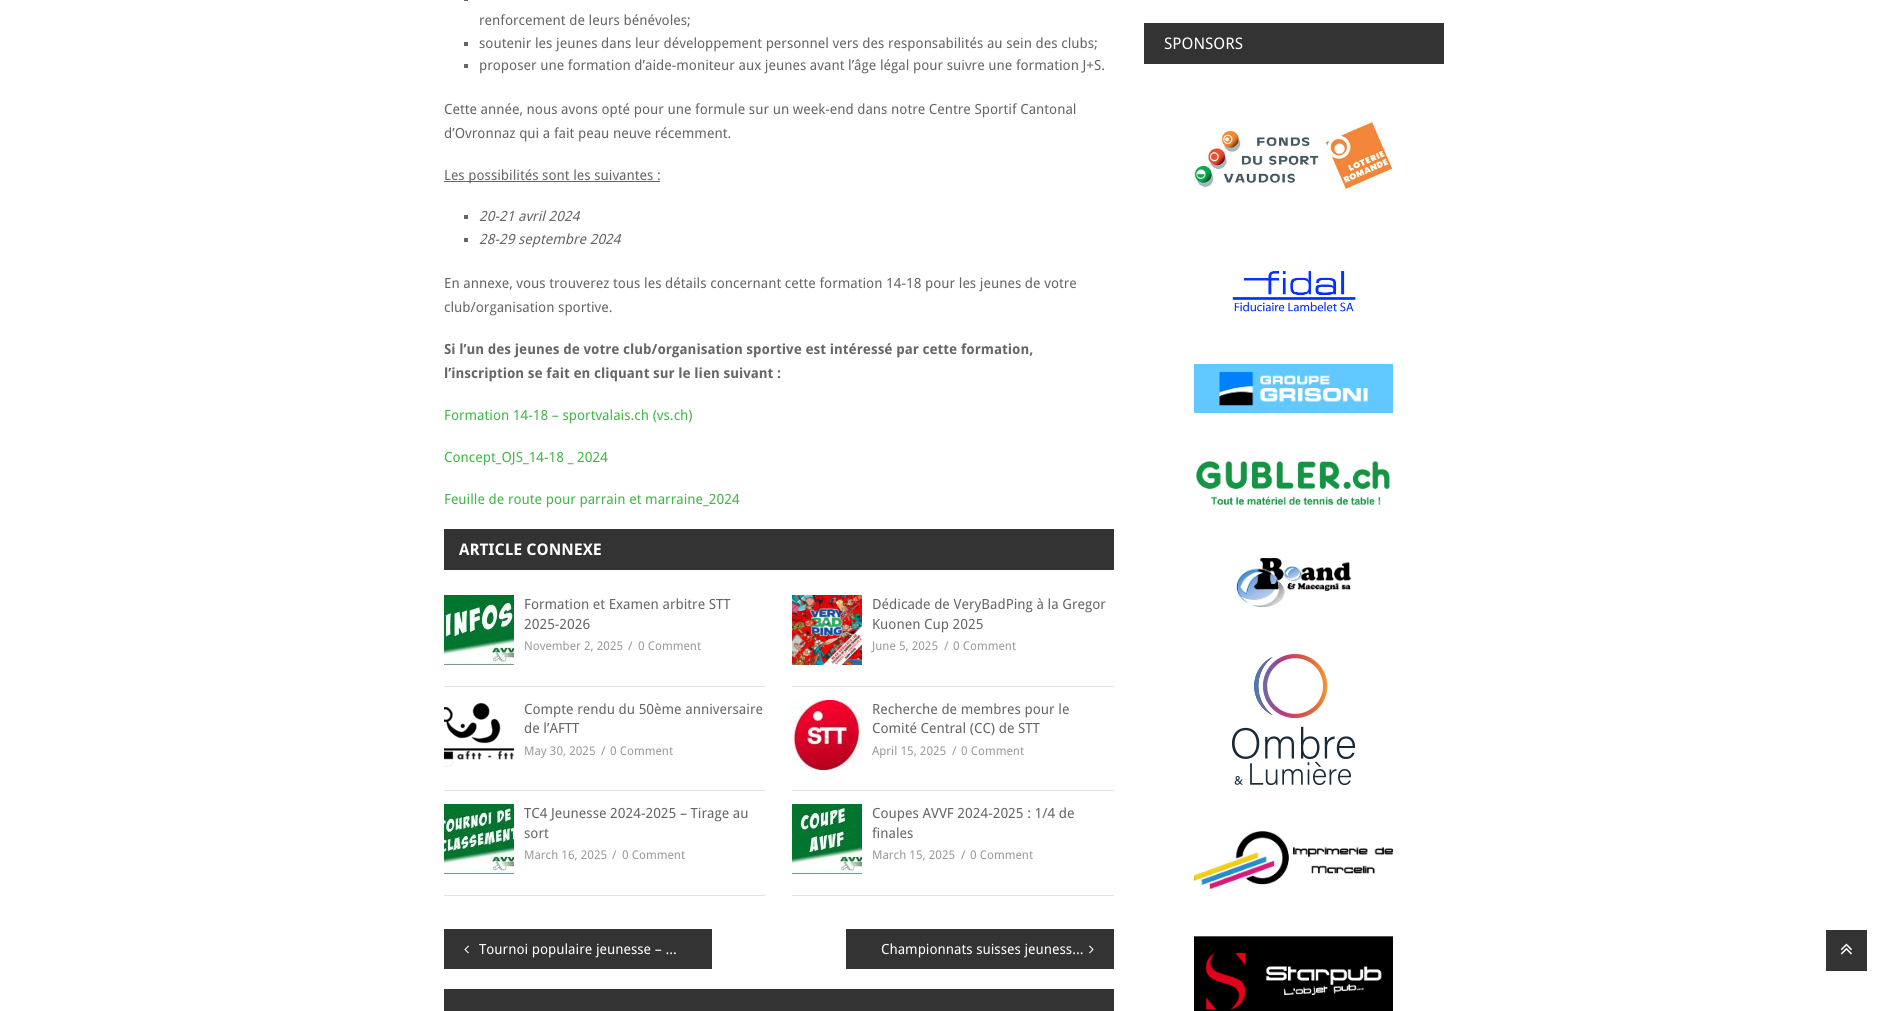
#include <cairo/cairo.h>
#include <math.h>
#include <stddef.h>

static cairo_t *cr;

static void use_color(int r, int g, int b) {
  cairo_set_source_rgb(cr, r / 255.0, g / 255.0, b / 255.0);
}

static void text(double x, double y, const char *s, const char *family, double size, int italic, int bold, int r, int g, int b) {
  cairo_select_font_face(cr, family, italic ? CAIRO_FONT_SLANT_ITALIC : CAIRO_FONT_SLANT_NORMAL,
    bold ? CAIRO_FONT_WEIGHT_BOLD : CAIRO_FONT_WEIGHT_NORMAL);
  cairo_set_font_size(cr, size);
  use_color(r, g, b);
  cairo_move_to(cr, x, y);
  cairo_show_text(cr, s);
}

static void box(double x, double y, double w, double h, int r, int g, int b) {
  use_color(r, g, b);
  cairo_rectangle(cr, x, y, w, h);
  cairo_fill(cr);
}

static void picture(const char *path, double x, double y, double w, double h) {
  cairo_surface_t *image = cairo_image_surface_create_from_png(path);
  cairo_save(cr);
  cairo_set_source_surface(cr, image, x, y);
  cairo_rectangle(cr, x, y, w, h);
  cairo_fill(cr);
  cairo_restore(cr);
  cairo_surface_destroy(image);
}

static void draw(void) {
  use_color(255, 255, 255);
  cairo_paint(cr);
  box(464, 0, 4, 1, 102, 102, 102);
  box(464, 42, 4, 4, 102, 102, 102);
  box(464, 64, 4, 4, 102, 102, 102);
  box(444, 181, 216, 1, 102, 102, 102);
  box(464, 215, 4, 4, 102, 102, 102);
  box(464, 238, 4, 4, 102, 102, 102);
  box(444, 529, 670, 41, 51, 51, 51);
  box(444, 686, 321, 1, 226, 226, 226);
  picture("img_01.png", 444, 595, 70, 70);
  box(792, 686, 322, 1, 226, 226, 226);
  picture("img_02.png", 792, 595, 70, 70);
  box(444, 790, 321, 1, 226, 226, 226);
  picture("img_03.png", 444, 702, 70, 66);
  box(792, 790, 322, 1, 226, 226, 226);
  picture("img_04.png", 792, 700, 70, 70);
  box(444, 895, 321, 1, 226, 226, 226);
  picture("img_05.png", 444, 804, 70, 70);
  box(792, 895, 322, 1, 226, 226, 226);
  picture("img_06.png", 792, 804, 70, 70);
  box(444, 929, 268, 40, 51, 51, 51);
  picture("img_07.png", 464, 945, 5, 9);
  box(846, 929, 268, 40, 51, 51, 51);
  picture("img_08.png", 1089, 945, 5, 9);
  box(444, 989, 670, 22, 51, 51, 51);
  box(1144, 23, 300, 41, 51, 51, 51);
  picture("img_09.png", 1194, 121, 199, 69);
  picture("img_10.png", 1232, 271, 124, 41);
  picture("img_11.png", 1194, 364, 199, 49);
  picture("img_12.png", 1196, 461, 194, 44);
  picture("img_13.png", 1236, 558, 115, 49);
  picture("img_14.png", 1232, 654, 123, 131);
  picture("img_15.png", 1194, 831, 199, 58);
  picture("img_16.png", 1194, 936, 199, 75);
  box(1826, 930, 41, 41, 51, 51, 51);
  picture("img_17.png", 1840, 943, 12, 12);
  text(479, 25, "renforcement de leurs bénévoles;", "Droid Sans", 14, 0, 0, 102, 102, 102);
  text(479, 48, "soutenir les jeunes dans leur développement personnel vers des responsabilités au sein des clubs;", "Droid Sans", 14, 0, 0, 102, 102, 102);
  text(479, 70, "proposer une formation d’aide-moniteur aux jeunes avant l’âge légal pour suivre une formation J+S.", "Droid Sans", 14, 0, 0, 102, 102, 102);
  text(444, 114, "Cette année, nous avons opté pour une formule sur un week-end dans notre Centre Sportif Cantonal", "Droid Sans", 14, 0, 0, 102, 102, 102);
  text(444, 138, "d’Ovronnaz qui a fait peau neuve récemment.", "Droid Sans", 14, 0, 0, 102, 102, 102);
  text(444, 180, "Les possibilités sont les suivantes :", "Droid Sans", 14, 0, 0, 102, 102, 102);
  text(479, 221, "20-21 avril 2024", "Droid Sans", 14, 1, 0, 102, 102, 102);
  text(479, 244, "28-29 septembre 2024", "Droid Sans", 14, 1, 0, 102, 102, 102);
  text(444, 288, "En annexe, vous trouverez tous les détails concernant cette formation 14-18 pour les jeunes de votre", "Droid Sans", 14, 0, 0, 102, 102, 102);
  text(444, 312, "club/organisation sportive.", "Droid Sans", 14, 0, 0, 102, 102, 102);
  text(444, 354, "Si l’un des jeunes de votre club/organisation sportive est intéressé par cette formation,", "Droid Sans", 14, 0, 1, 102, 102, 102);
  text(444, 378, "l’inscription se fait en cliquant sur le lien suivant :", "Droid Sans", 14, 0, 1, 102, 102, 102);
  text(444, 420, "Formation 14-18 – sportvalais.ch (vs.ch)", "Droid Sans", 14, 0, 0, 66, 182, 73);
  text(444, 462, "Concept_OJS_14-18 _ 2024", "Droid Sans", 14, 0, 0, 66, 182, 73);
  text(444, 504, "Feuille de route pour parrain et marraine_2024", "Droid Sans", 14, 0, 0, 66, 182, 73);
  text(459, 555, "ARTICLE CONNEXE", "Droid Sans", 16, 0, 1, 255, 255, 255);
  text(524, 609, "Formation et Examen arbitre STT", "Droid Sans", 14, 0, 0, 102, 102, 102);
  text(524, 629, "2025-2026", "Droid Sans", 14, 0, 0, 102, 102, 102);
  text(524, 650, "November 2, 2025", "Droid Sans", 12, 0, 0, 153, 153, 153);
  text(628, 650, "/", "Droid Sans", 12, 0, 0, 153, 153, 153);
  text(638, 650, "0 Comment", "Droid Sans", 12, 0, 0, 153, 153, 153);
  text(872, 609, "Dédicade de VeryBadPing à la Gregor", "Droid Sans", 14, 0, 0, 102, 102, 102);
  text(872, 629, "Kuonen Cup 2025", "Droid Sans", 14, 0, 0, 102, 102, 102);
  text(872, 650, "June 5, 2025", "Droid Sans", 12, 0, 0, 153, 153, 153);
  text(944, 650, "/", "Droid Sans", 12, 0, 0, 153, 153, 153);
  text(953, 650, "0 Comment", "Droid Sans", 12, 0, 0, 153, 153, 153);
  text(524, 714, "Compte rendu du 50ème anniversaire", "Droid Sans", 14, 0, 0, 102, 102, 102);
  text(524, 733, "de l’AFTT", "Droid Sans", 14, 0, 0, 102, 102, 102);
  text(524, 755, "May 30, 2025", "Droid Sans", 12, 0, 0, 153, 153, 153);
  text(601, 755, "/", "Droid Sans", 12, 0, 0, 153, 153, 153);
  text(610, 755, "0 Comment", "Droid Sans", 12, 0, 0, 153, 153, 153);
  text(872, 714, "Recherche de membres pour le", "Droid Sans", 14, 0, 0, 102, 102, 102);
  text(872, 733, "Comité Central (CC) de STT", "Droid Sans", 14, 0, 0, 102, 102, 102);
  text(872, 755, "April 15, 2025", "Droid Sans", 12, 0, 0, 153, 153, 153);
  text(952, 755, "/", "Droid Sans", 12, 0, 0, 153, 153, 153);
  text(961, 755, "0 Comment", "Droid Sans", 12, 0, 0, 153, 153, 153);
  text(524, 818, "TC4 Jeunesse 2024-2025 – Tirage au", "Droid Sans", 14, 0, 0, 102, 102, 102);
  text(524, 838, "sort", "Droid Sans", 14, 0, 0, 102, 102, 102);
  text(524, 859, "March 16, 2025", "Droid Sans", 12, 0, 0, 153, 153, 153);
  text(612, 859, "/", "Droid Sans", 12, 0, 0, 153, 153, 153);
  text(622, 859, "0 Comment", "Droid Sans", 12, 0, 0, 153, 153, 153);
  text(872, 818, "Coupes AVVF 2024-2025 : 1/4 de", "Droid Sans", 14, 0, 0, 102, 102, 102);
  text(872, 838, "finales", "Droid Sans", 14, 0, 0, 102, 102, 102);
  text(872, 859, "March 15, 2025", "Droid Sans", 12, 0, 0, 153, 153, 153);
  text(961, 859, "/", "Droid Sans", 12, 0, 0, 153, 153, 153);
  text(970, 859, "0 Comment", "Droid Sans", 12, 0, 0, 153, 153, 153);
  text(479, 954, "Tournoi populaire jeunesse – ...", "Droid Sans", 14, 0, 0, 255, 255, 255);
  text(881, 954, "Championnats suisses jeuness...", "Droid Sans", 14, 0, 0, 255, 255, 255);
  text(1164, 49, "SPONSORS", "Droid Sans", 16, 0, 0, 255, 255, 255);
}

int main(void) {
  cairo_surface_t *surface = cairo_image_surface_create(CAIRO_FORMAT_RGB24, 1887, 1011);
  cr = cairo_create(surface);
  cairo_font_options_t *options = cairo_font_options_create();
  cairo_font_options_set_hint_metrics(options, CAIRO_HINT_METRICS_OFF);
  cairo_font_options_set_hint_style(options, CAIRO_HINT_STYLE_NONE);
  cairo_set_font_options(cr, options);
  cairo_set_miter_limit(cr, 4);
  draw();
  cairo_surface_write_to_png(surface, "out.png");
  cairo_font_options_destroy(options);
  cairo_destroy(cr);
  cairo_surface_destroy(surface);
  return 0;
}
